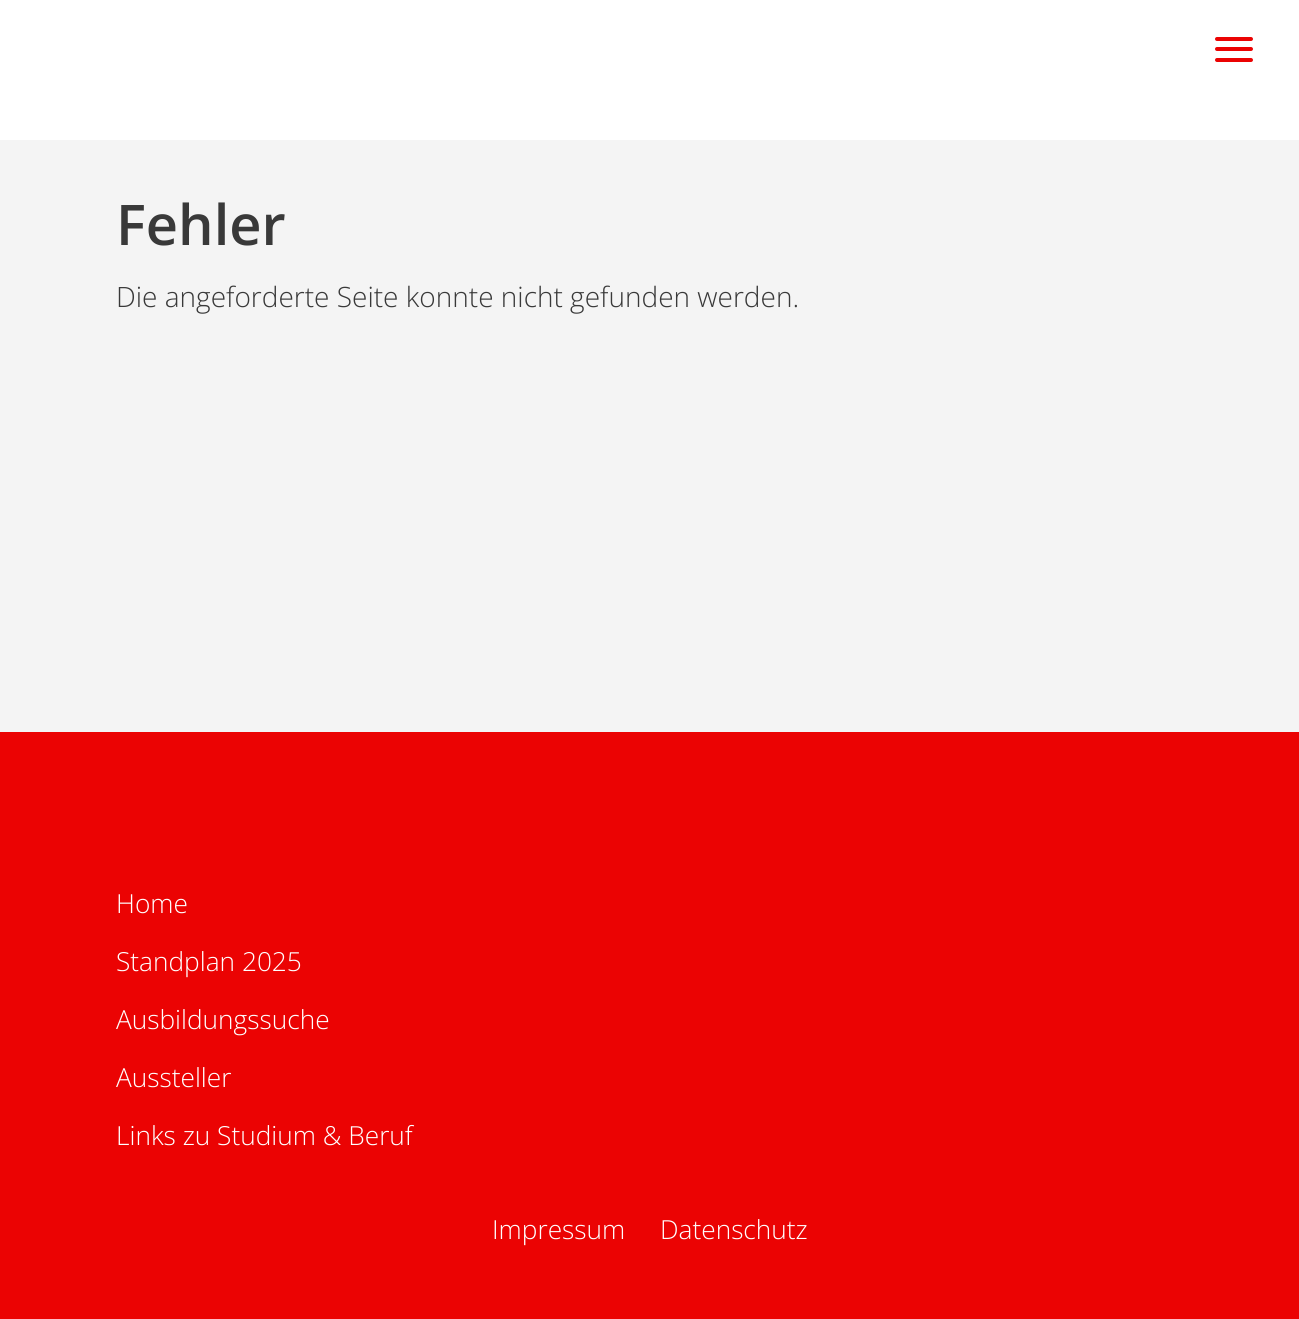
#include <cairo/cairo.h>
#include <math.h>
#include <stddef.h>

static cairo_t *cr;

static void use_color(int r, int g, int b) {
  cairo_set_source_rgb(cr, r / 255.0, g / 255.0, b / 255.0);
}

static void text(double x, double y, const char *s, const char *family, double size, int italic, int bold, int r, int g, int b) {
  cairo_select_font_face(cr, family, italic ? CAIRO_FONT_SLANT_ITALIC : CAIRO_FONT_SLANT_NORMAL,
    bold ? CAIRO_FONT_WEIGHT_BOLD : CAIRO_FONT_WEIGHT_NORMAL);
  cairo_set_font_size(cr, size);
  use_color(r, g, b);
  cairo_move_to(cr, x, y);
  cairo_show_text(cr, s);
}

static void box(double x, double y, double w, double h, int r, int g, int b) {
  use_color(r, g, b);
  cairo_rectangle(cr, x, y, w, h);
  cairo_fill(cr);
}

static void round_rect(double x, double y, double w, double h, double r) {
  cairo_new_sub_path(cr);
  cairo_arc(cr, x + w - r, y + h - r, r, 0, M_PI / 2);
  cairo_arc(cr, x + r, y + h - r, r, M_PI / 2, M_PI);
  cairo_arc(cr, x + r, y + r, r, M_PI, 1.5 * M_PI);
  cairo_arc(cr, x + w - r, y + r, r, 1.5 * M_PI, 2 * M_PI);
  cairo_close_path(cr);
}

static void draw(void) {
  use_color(244, 244, 244);
  cairo_paint(cr);
  box(0, 0, 1299, 140, 255, 255, 255);
  use_color(235, 3, 3);
  round_rect(1215, 37, 38, 4, 2);
  cairo_fill(cr);
  round_rect(1215, 47, 38, 4, 2);
  cairo_fill(cr);
  round_rect(1215, 58, 38, 4, 2);
  cairo_fill(cr);
  box(0, 732, 1299, 587, 235, 3, 3);
  text(116, 245, "Fehler", "Open Sans SemiBold", 56, 0, 0, 57, 57, 57);
  text(116, 307, "Die angeforderte Seite konnte nicht gefunden werden.", "Open Sans Light", 28, 0, 0, 57, 57, 57);
  text(116, 913, "Home", "Open Sans Light", 26.25, 0, 0, 255, 255, 255);
  text(116, 971, "Standplan 2025", "Open Sans Light", 26.25, 0, 0, 255, 255, 255);
  text(116, 1029, "Ausbildungssuche", "Open Sans Light", 26.25, 0, 0, 255, 255, 255);
  text(116, 1087, "Aussteller", "Open Sans Light", 26.25, 0, 0, 255, 255, 255);
  text(116, 1145, "Links zu Studium & Beruf", "Open Sans Light", 26.25, 0, 0, 255, 255, 255);
  text(492, 1239, "Impressum", "Open Sans Light", 26.25, 0, 0, 255, 255, 255);
  text(660, 1239, "Datenschutz", "Open Sans Light", 26.25, 0, 0, 255, 255, 255);
}

int main(void) {
  cairo_surface_t *surface = cairo_image_surface_create(CAIRO_FORMAT_RGB24, 1299, 1319);
  cr = cairo_create(surface);
  cairo_font_options_t *options = cairo_font_options_create();
  cairo_font_options_set_hint_metrics(options, CAIRO_HINT_METRICS_OFF);
  cairo_font_options_set_hint_style(options, CAIRO_HINT_STYLE_NONE);
  cairo_set_font_options(cr, options);
  cairo_set_miter_limit(cr, 4);
  draw();
  cairo_surface_write_to_png(surface, "out.png");
  cairo_font_options_destroy(options);
  cairo_destroy(cr);
  cairo_surface_destroy(surface);
  return 0;
}
